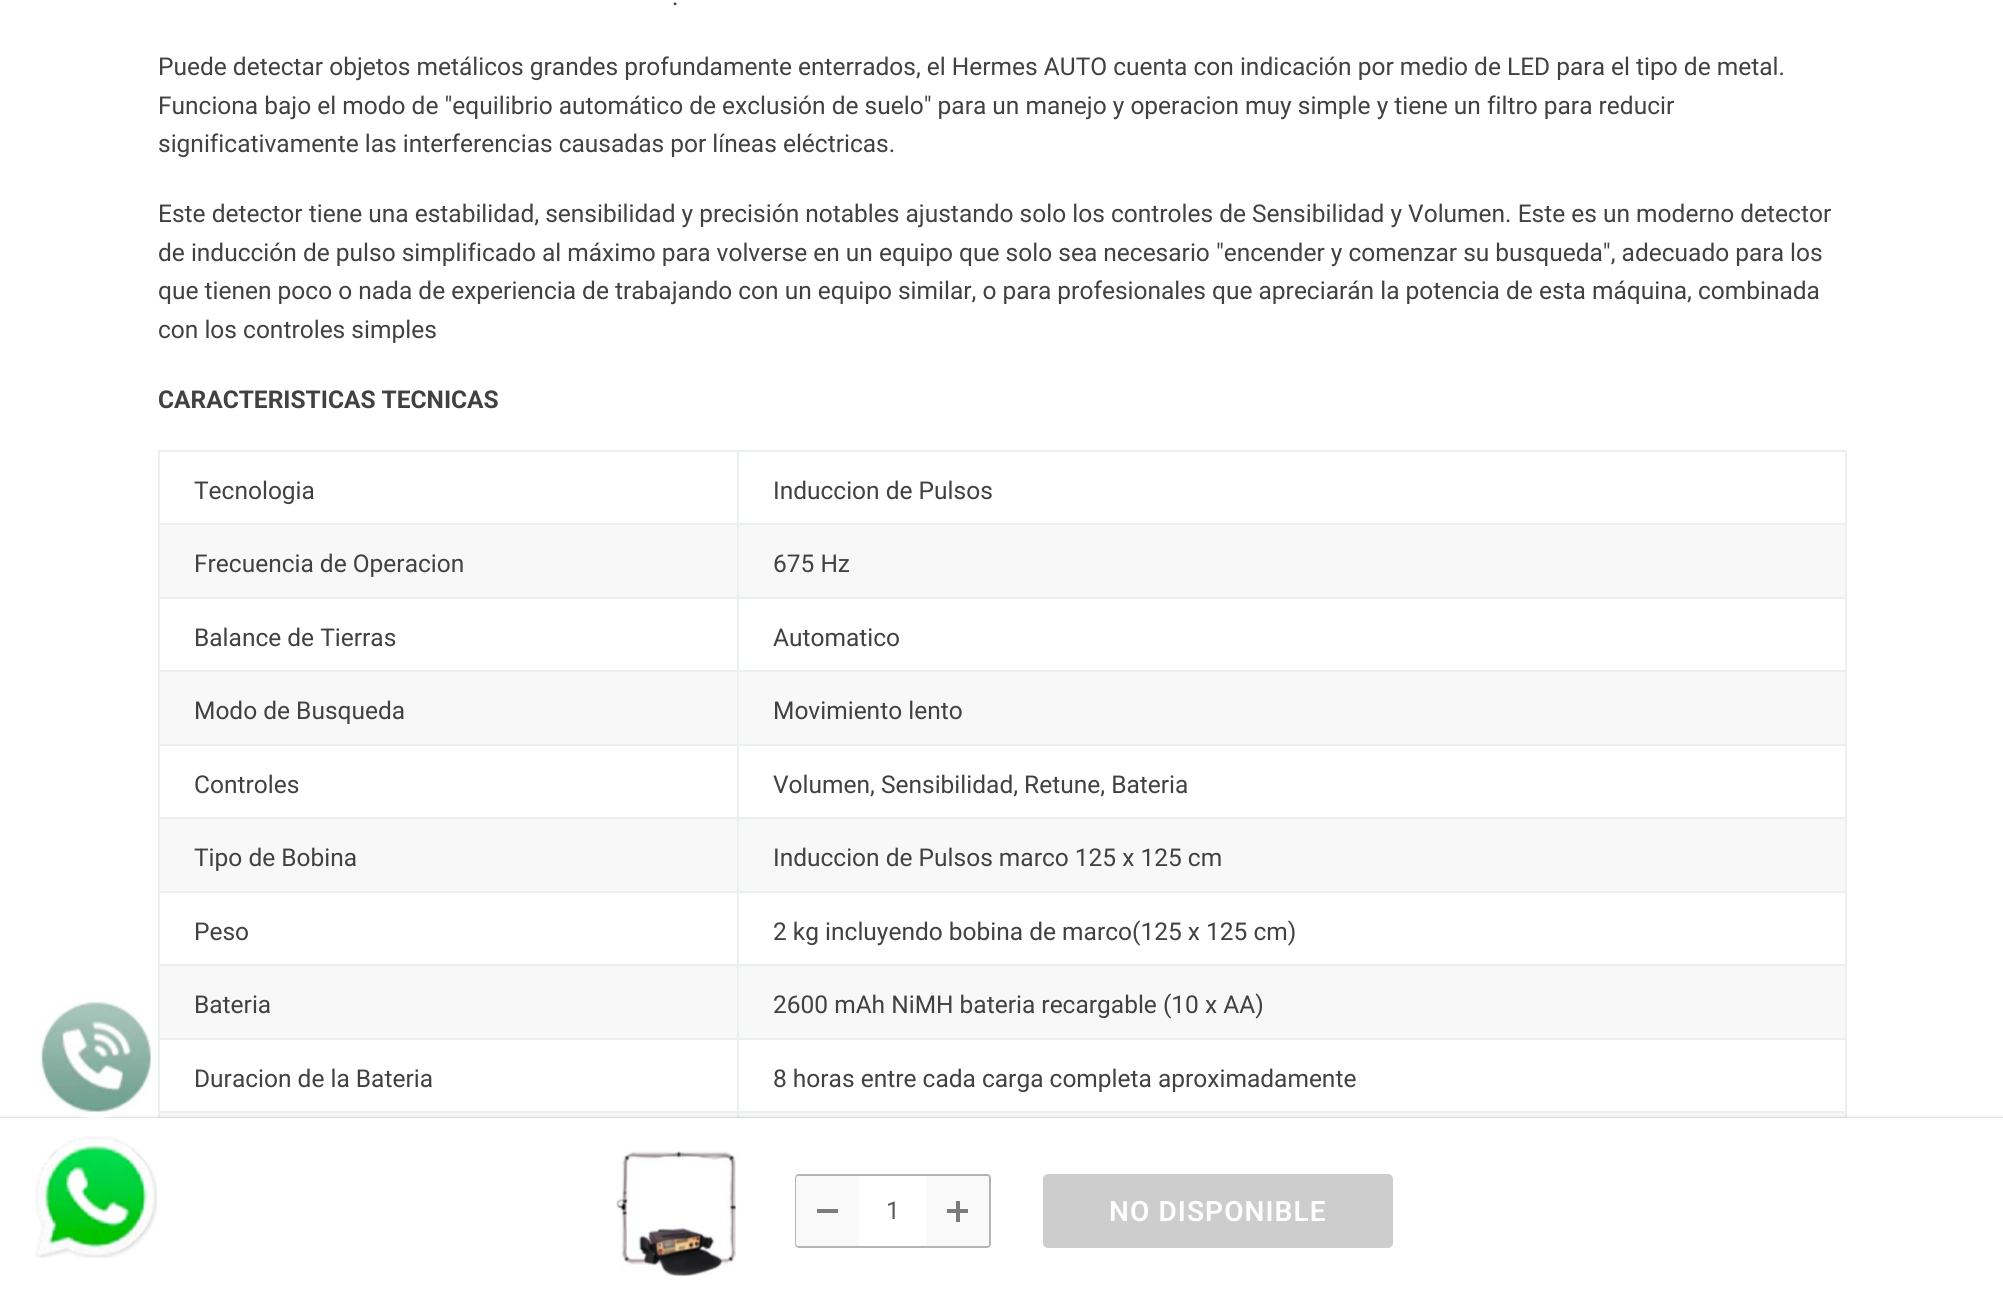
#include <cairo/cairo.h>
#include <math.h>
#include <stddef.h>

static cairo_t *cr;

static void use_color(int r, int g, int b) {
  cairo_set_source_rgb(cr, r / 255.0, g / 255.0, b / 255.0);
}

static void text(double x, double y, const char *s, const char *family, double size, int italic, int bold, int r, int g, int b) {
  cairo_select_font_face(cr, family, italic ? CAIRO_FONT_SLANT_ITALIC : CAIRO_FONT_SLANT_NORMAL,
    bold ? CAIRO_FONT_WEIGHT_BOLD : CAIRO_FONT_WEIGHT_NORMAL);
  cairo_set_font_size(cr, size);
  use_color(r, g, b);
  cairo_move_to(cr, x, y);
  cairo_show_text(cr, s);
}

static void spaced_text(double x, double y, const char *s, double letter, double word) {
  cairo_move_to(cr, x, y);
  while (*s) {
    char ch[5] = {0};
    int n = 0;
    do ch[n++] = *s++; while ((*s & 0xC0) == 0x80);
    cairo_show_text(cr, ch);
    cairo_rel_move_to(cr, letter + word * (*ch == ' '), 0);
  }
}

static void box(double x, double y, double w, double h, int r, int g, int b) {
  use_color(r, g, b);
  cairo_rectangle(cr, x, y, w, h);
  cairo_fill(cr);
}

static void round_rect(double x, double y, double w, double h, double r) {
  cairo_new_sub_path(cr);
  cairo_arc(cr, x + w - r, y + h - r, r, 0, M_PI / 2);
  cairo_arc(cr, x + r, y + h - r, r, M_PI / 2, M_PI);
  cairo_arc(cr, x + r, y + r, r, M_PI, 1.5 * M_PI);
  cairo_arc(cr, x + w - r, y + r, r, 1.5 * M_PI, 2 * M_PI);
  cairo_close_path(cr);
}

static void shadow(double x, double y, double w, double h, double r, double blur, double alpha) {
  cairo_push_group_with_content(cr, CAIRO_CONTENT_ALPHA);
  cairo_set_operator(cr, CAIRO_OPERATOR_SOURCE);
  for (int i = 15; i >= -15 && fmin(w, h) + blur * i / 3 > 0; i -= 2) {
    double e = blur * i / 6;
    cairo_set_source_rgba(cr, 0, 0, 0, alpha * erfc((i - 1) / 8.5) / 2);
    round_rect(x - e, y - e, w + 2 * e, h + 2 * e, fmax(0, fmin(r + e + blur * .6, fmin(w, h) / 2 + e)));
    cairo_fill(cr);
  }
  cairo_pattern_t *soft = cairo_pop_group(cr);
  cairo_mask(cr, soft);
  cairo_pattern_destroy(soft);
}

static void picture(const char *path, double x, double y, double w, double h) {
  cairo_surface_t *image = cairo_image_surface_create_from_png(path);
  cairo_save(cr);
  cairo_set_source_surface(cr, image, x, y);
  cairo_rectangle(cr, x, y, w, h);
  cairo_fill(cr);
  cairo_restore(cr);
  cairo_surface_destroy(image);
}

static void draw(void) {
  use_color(255, 255, 255);
  cairo_paint(cr);
  box(737, 1038, 1109, 2, 234, 239, 239);
  box(737, 1111, 1109, 2, 234, 239, 239);
  box(737, 1111, 2, 7, 234, 239, 239);
  box(158, 1111, 581, 2, 234, 239, 239);
  box(737, 1038, 2, 75, 234, 239, 239);
  box(158, 1038, 581, 2, 234, 239, 239);
  box(158, 1111, 2, 7, 234, 239, 239);
  box(158, 1038, 2, 75, 234, 239, 239);
  box(1845, 1111, 2, 7, 234, 239, 239);
  box(1845, 1038, 2, 75, 234, 239, 239);
  box(160, 1113, 577, 5, 248, 248, 248);
  box(739, 1113, 1106, 5, 248, 248, 248);
  use_color(0, 0, 0);
  shadow(0, 1117, 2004, 183, 0, 2, 0.1);
  cairo_rectangle(cr, -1, 1118, 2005, 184);
  cairo_set_source_rgba(cr, 0, 0, 0, 0.06);
  cairo_stroke(cr);
  picture("img_01.png", 39, 1001, 114, 117);
  box(737, 450, 1109, 2, 234, 239, 239);
  box(737, 523, 1109, 2, 234, 239, 239);
  box(737, 597, 1109, 2, 234, 239, 239);
  box(737, 670, 1109, 2, 234, 239, 239);
  box(737, 744, 1109, 2, 234, 239, 239);
  box(737, 817, 1109, 2, 234, 239, 239);
  box(737, 891, 1109, 2, 234, 239, 239);
  box(737, 964, 1109, 2, 234, 239, 239);
  box(737, 964, 2, 76, 234, 239, 239);
  box(158, 964, 581, 2, 234, 239, 239);
  box(737, 891, 2, 75, 234, 239, 239);
  box(158, 891, 581, 2, 234, 239, 239);
  box(737, 817, 2, 76, 234, 239, 239);
  box(158, 817, 581, 2, 234, 239, 239);
  box(737, 744, 2, 75, 234, 239, 239);
  box(158, 744, 581, 2, 234, 239, 239);
  box(737, 670, 2, 76, 234, 239, 239);
  box(158, 670, 581, 2, 234, 239, 239);
  box(737, 597, 2, 75, 234, 239, 239);
  box(158, 597, 581, 2, 234, 239, 239);
  box(737, 523, 2, 76, 234, 239, 239);
  box(158, 523, 581, 2, 234, 239, 239);
  box(737, 450, 2, 75, 234, 239, 239);
  box(158, 450, 581, 2, 234, 239, 239);
  box(158, 964, 2, 76, 234, 239, 239);
  box(158, 891, 2, 75, 234, 239, 239);
  box(158, 817, 2, 76, 234, 239, 239);
  box(158, 744, 2, 75, 234, 239, 239);
  box(158, 670, 2, 76, 234, 239, 239);
  box(158, 597, 2, 75, 234, 239, 239);
  box(158, 523, 2, 76, 234, 239, 239);
  box(158, 450, 2, 75, 234, 239, 239);
  box(1845, 964, 2, 76, 234, 239, 239);
  box(1845, 891, 2, 75, 234, 239, 239);
  box(1845, 817, 2, 76, 234, 239, 239);
  box(1845, 744, 2, 75, 234, 239, 239);
  box(1845, 670, 2, 76, 234, 239, 239);
  box(1845, 597, 2, 75, 234, 239, 239);
  box(1845, 523, 2, 76, 234, 239, 239);
  box(1845, 450, 2, 75, 234, 239, 239);
  box(160, 525, 577, 72, 248, 248, 248);
  box(739, 525, 1106, 72, 248, 248, 248);
  box(160, 672, 577, 72, 248, 248, 248);
  box(739, 672, 1106, 72, 248, 248, 248);
  box(160, 819, 577, 72, 248, 248, 248);
  box(739, 819, 1106, 72, 248, 248, 248);
  box(160, 966, 577, 72, 248, 248, 248);
  box(739, 966, 1106, 72, 248, 248, 248);
  box(0, 1118, 2003, 183, 255, 255, 255);
  picture("img_02.png", 616, 1150, 121, 127);
  round_rect(796, 1175, 194, 72, 3);
  use_color(180, 180, 180);
  cairo_stroke(cr);
  use_color(249, 249, 249);
  cairo_new_path(cr);
  cairo_move_to(cr, 798, 1176);
  cairo_line_to(cr, 859, 1176);
  cairo_line_to(cr, 859, 1246);
  cairo_line_to(cr, 798, 1246);
  cairo_curve_to(cr, 797, 1246, 796, 1245, 796, 1244);
  cairo_line_to(cr, 796, 1178);
  cairo_curve_to(cr, 796, 1177, 797, 1176, 798, 1176);
  cairo_close_path(cr);
  cairo_fill(cr);
  box(817, 1209, 21, 4, 123, 123, 123);
  use_color(249, 249, 249);
  cairo_new_path(cr);
  cairo_move_to(cr, 926, 1176);
  cairo_line_to(cr, 987, 1176);
  cairo_curve_to(cr, 988, 1176, 989, 1177, 989, 1178);
  cairo_line_to(cr, 989, 1244);
  cairo_curve_to(cr, 989, 1245, 988, 1246, 987, 1246);
  cairo_line_to(cr, 926, 1246);
  cairo_close_path(cr);
  cairo_fill(cr);
  box(956, 1201, 4, 21, 123, 123, 123);
  box(947, 1209, 21, 4, 123, 123, 123);
  use_color(205, 205, 205);
  round_rect(1044, 1175, 348, 72, 4);
  cairo_fill_preserve(cr);
  cairo_stroke(cr);
  picture("img_03.png", 35, 1136, 122, 122);
  text(672, 5, ".", "Roboto", 24.5, 0, 0, 65, 65, 65);
  text(158, 75, "Puede detectar objetos metálicos grandes profundamente enterrados, el Hermes AUTO cuenta con indicación por medio de LED para el tipo de metal.", "Roboto", 24.5, 0, 0, 65, 65, 65);
  text(158, 114, "Funciona bajo el modo de \"equilibrio automático de exclusión de suelo\" para un manejo y operacion muy simple y tiene un filtro para reducir", "Roboto", 24.5, 0, 0, 65, 65, 65);
  text(158, 152, "significativamente las interferencias causadas por líneas eléctricas.", "Roboto", 24.5, 0, 0, 65, 65, 65);
  text(158, 222, "Este detector tiene una estabilidad, sensibilidad y precisión notables ajustando solo los controles de Sensibilidad y Volumen. Este es un moderno detector", "Roboto", 24.5, 0, 0, 65, 65, 65);
  text(158, 261, "de inducción de pulso simplificado al máximo para volverse en un equipo que solo sea necesario \"encender y comenzar su busqueda\", adecuado para los", "Roboto", 24.5, 0, 0, 65, 65, 65);
  text(158, 299, "que tienen poco o nada de experiencia de trabajando con un equipo similar, o para profesionales que apreciarán la potencia de esta máquina, combinada", "Roboto", 24.5, 0, 0, 65, 65, 65);
  text(158, 338, "con los controles simples", "Roboto", 24.5, 0, 0, 65, 65, 65);
  text(158, 408, "CARACTERISTICAS TECNICAS", "Roboto", 24.5, 0, 1, 65, 65, 65);
  text(194, 499, "Tecnologia", "Roboto", 24.5, 0, 0, 65, 65, 65);
  text(773, 499, "Induccion de Pulsos", "Roboto", 24.5, 0, 0, 65, 65, 65);
  text(194, 572, "Frecuencia de Operacion", "Roboto", 24.5, 0, 0, 65, 65, 65);
  text(773, 572, "675 Hz", "Roboto", 24.5, 0, 0, 65, 65, 65);
  text(194, 646, "Balance de Tierras", "Roboto", 24.5, 0, 0, 65, 65, 65);
  text(773, 646, "Automatico", "Roboto", 24.5, 0, 0, 65, 65, 65);
  text(194, 719, "Modo de Busqueda", "Roboto", 24.5, 0, 0, 65, 65, 65);
  text(773, 719, "Movimiento lento", "Roboto", 24.5, 0, 0, 65, 65, 65);
  text(194, 793, "Controles", "Roboto", 24.5, 0, 0, 65, 65, 65);
  text(773, 793, "Volumen, Sensibilidad, Retune, Bateria", "Roboto", 24.5, 0, 0, 65, 65, 65);
  text(194, 866, "Tipo de Bobina", "Roboto", 24.5, 0, 0, 65, 65, 65);
  text(773, 866, "Induccion de Pulsos marco 125 x 125 cm", "Roboto", 24.5, 0, 0, 65, 65, 65);
  text(194, 940, "Peso", "Roboto", 24.5, 0, 0, 65, 65, 65);
  text(773, 940, "2 kg incluyendo bobina de marco(125 x 125 cm)", "Roboto", 24.5, 0, 0, 65, 65, 65);
  text(194, 1013, "Bateria", "Roboto", 24.5, 0, 0, 65, 65, 65);
  text(773, 1013, "2600 mAh NiMH bateria recargable (10 x AA)", "Roboto", 24.5, 0, 0, 65, 65, 65);
  text(194, 1087, "Duracion de la Bateria", "Roboto", 24.5, 0, 0, 65, 65, 65);
  text(773, 1087, "8 horas entre cada carga completa aproximadamente", "Roboto", 24.5, 0, 0, 65, 65, 65);
  text(886, 1219, "1", "Roboto", 24.5, 0, 0, 90, 90, 90);
  cairo_select_font_face(cr, "Roboto SemiBold", CAIRO_FONT_SLANT_NORMAL, CAIRO_FONT_WEIGHT_NORMAL);
  cairo_set_font_size(cr, 28);
  use_color(255, 255, 255);
  spaced_text(1109, 1221, "NO DISPONIBLE", 1.1, 0);
}

int main(void) {
  cairo_surface_t *surface = cairo_image_surface_create(CAIRO_FORMAT_RGB24, 2003, 1301);
  cr = cairo_create(surface);
  cairo_font_options_t *options = cairo_font_options_create();
  cairo_font_options_set_hint_metrics(options, CAIRO_HINT_METRICS_OFF);
  cairo_font_options_set_hint_style(options, CAIRO_HINT_STYLE_NONE);
  cairo_set_font_options(cr, options);
  cairo_set_miter_limit(cr, 4);
  draw();
  cairo_surface_write_to_png(surface, "out.png");
  cairo_font_options_destroy(options);
  cairo_destroy(cr);
  cairo_surface_destroy(surface);
  return 0;
}
